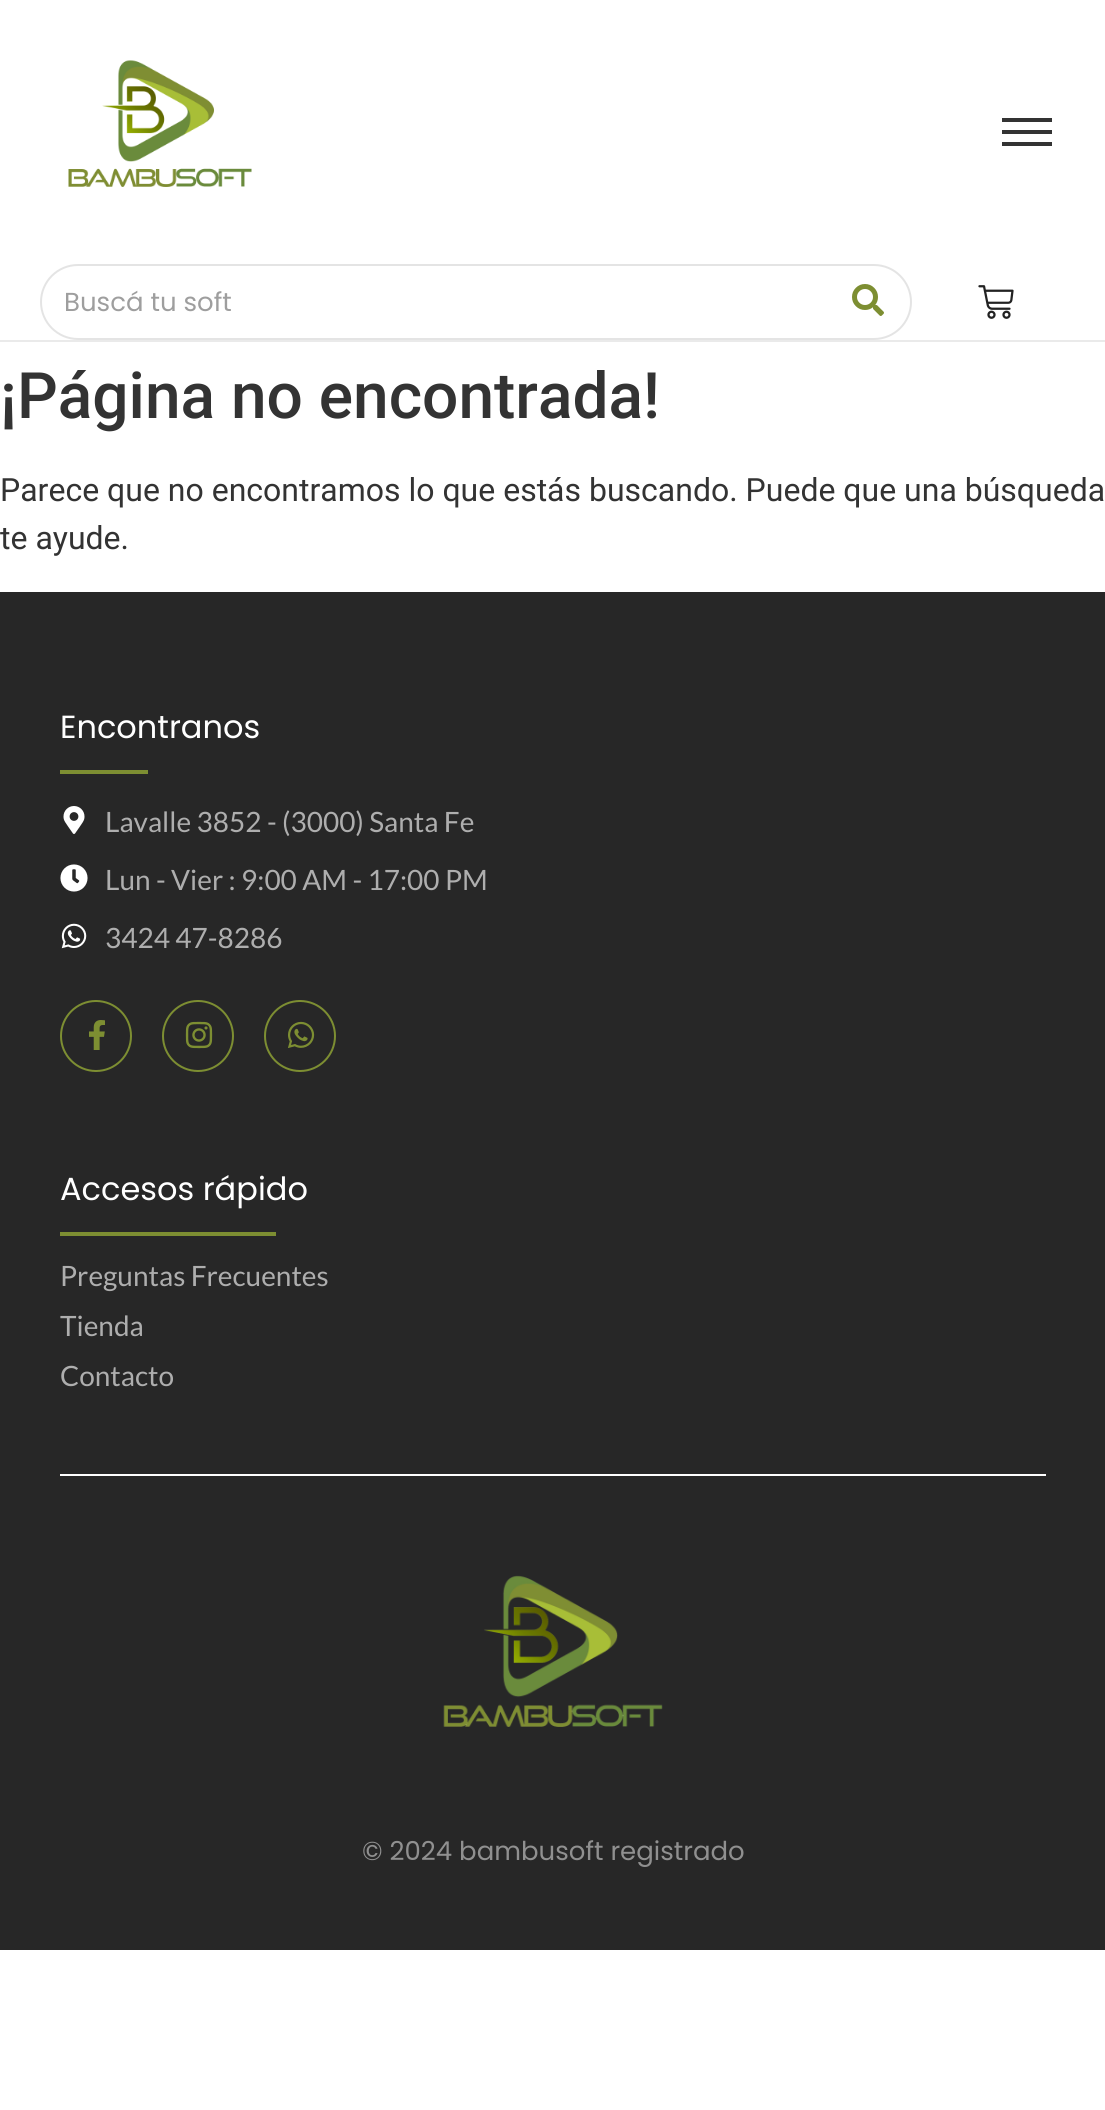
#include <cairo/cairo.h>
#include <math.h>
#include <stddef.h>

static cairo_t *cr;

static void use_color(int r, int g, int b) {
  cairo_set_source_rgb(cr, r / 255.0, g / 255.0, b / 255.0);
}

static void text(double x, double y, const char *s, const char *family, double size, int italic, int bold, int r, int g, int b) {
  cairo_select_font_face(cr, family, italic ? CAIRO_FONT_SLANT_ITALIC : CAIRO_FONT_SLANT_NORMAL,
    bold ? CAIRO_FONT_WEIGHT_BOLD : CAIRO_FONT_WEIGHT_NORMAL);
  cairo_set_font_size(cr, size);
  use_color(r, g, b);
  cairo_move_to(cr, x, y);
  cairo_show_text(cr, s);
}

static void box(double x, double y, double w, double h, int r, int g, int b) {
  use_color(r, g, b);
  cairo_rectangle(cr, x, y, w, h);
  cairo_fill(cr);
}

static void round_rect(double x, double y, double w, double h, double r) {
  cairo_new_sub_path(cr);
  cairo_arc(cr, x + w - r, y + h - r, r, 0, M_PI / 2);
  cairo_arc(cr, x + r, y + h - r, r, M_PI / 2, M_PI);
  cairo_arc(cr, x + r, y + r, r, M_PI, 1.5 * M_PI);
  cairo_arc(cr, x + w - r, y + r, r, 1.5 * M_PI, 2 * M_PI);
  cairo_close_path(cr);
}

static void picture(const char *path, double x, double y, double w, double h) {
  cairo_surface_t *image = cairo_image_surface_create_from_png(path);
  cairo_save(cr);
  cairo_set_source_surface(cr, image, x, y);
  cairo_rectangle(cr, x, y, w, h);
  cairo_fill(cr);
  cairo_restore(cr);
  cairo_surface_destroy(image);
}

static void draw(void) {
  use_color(255, 255, 255);
  cairo_paint(cr);
  box(0, 340, 1105, 2, 234, 234, 234);
  picture("img_01.png", 68, 60, 184, 127);
  box(1002, 118, 50, 4, 51, 51, 51);
  box(1002, 130, 50, 4, 51, 51, 51);
  box(1002, 142, 50, 4, 51, 51, 51);
  round_rect(41, 265, 870, 74, 37);
  use_color(228, 228, 228);
  cairo_stroke(cr);
  picture("img_02.png", 852, 284, 32, 32);
  picture("img_03.png", 978, 285, 36, 34);
  box(0, 592, 1105, 1358, 39, 39, 39);
  box(60, 770, 88, 4, 125, 142, 50);
  picture("img_04.png", 63, 806, 22, 28);
  picture("img_05.png", 60, 864, 28, 28);
  picture("img_06.png", 61, 923, 26, 26);
  cairo_arc(cr, 96, 1036, 35, 0, 2 * M_PI);
  cairo_stroke(cr);
  picture("img_07.png", 89, 1020, 16, 30);
  cairo_arc(cr, 198, 1036, 35, 0, 2 * M_PI);
  cairo_stroke(cr);
  picture("img_08.png", 185, 1021, 28, 28);
  cairo_arc(cr, 300, 1036, 35, 0, 2 * M_PI);
  cairo_stroke(cr);
  picture("img_09.png", 288, 1021, 27, 27);
  box(60, 1232, 216, 4, 125, 142, 50);
  box(60, 1474, 986, 2, 255, 255, 255);
  picture("img_10.png", 443, 1575, 220, 152);
  text(64, 311, "Buscá tu soft", "Poppins", 26, 0, 0, 158, 158, 158);
  text(0, 418, "¡Página no encontrada!", "Roboto Medium", 64, 0, 0, 51, 51, 51);
  text(0, 501, "Parece que no encontramos lo que estás buscando. Puede que una búsqueda", "Roboto", 32, 0, 0, 51, 51, 51);
  text(0, 549, "te ayude.", "Roboto", 32, 0, 0, 51, 51, 51);
  text(60, 738, "Encontranos", "Poppins", 32, 0, 0, 255, 255, 255);
  text(105, 832, "Lavalle 3852 - (3000) Santa Fe", "Lato", 28, 0, 0, 174, 174, 174);
  text(105, 890, "Lun - Vier : 9:00 AM - 17:00 PM", "Lato", 28, 0, 0, 174, 174, 174);
  text(105, 948, "3424 47-8286", "Lato", 28, 0, 0, 174, 174, 174);
  text(60, 1200, "Accesos rápido", "Poppins", 32, 0, 0, 255, 255, 255);
  text(60, 1286, "Preguntas Frecuentes", "Lato", 28, 0, 0, 174, 174, 174);
  text(60, 1336, "Tienda", "Lato", 28, 0, 0, 174, 174, 174);
  text(60, 1386, "Contacto", "Lato", 28, 0, 0, 174, 174, 174);
  text(362, 1860, "© 2024 bambusoft registrado", "Poppins", 26, 0, 0, 144, 144, 144);
}

int main(void) {
  cairo_surface_t *surface = cairo_image_surface_create(CAIRO_FORMAT_RGB24, 1105, 2110);
  cr = cairo_create(surface);
  cairo_font_options_t *options = cairo_font_options_create();
  cairo_font_options_set_hint_metrics(options, CAIRO_HINT_METRICS_OFF);
  cairo_font_options_set_hint_style(options, CAIRO_HINT_STYLE_NONE);
  cairo_set_font_options(cr, options);
  cairo_set_miter_limit(cr, 4);
  draw();
  cairo_surface_write_to_png(surface, "out.png");
  cairo_font_options_destroy(options);
  cairo_destroy(cr);
  cairo_surface_destroy(surface);
  return 0;
}
